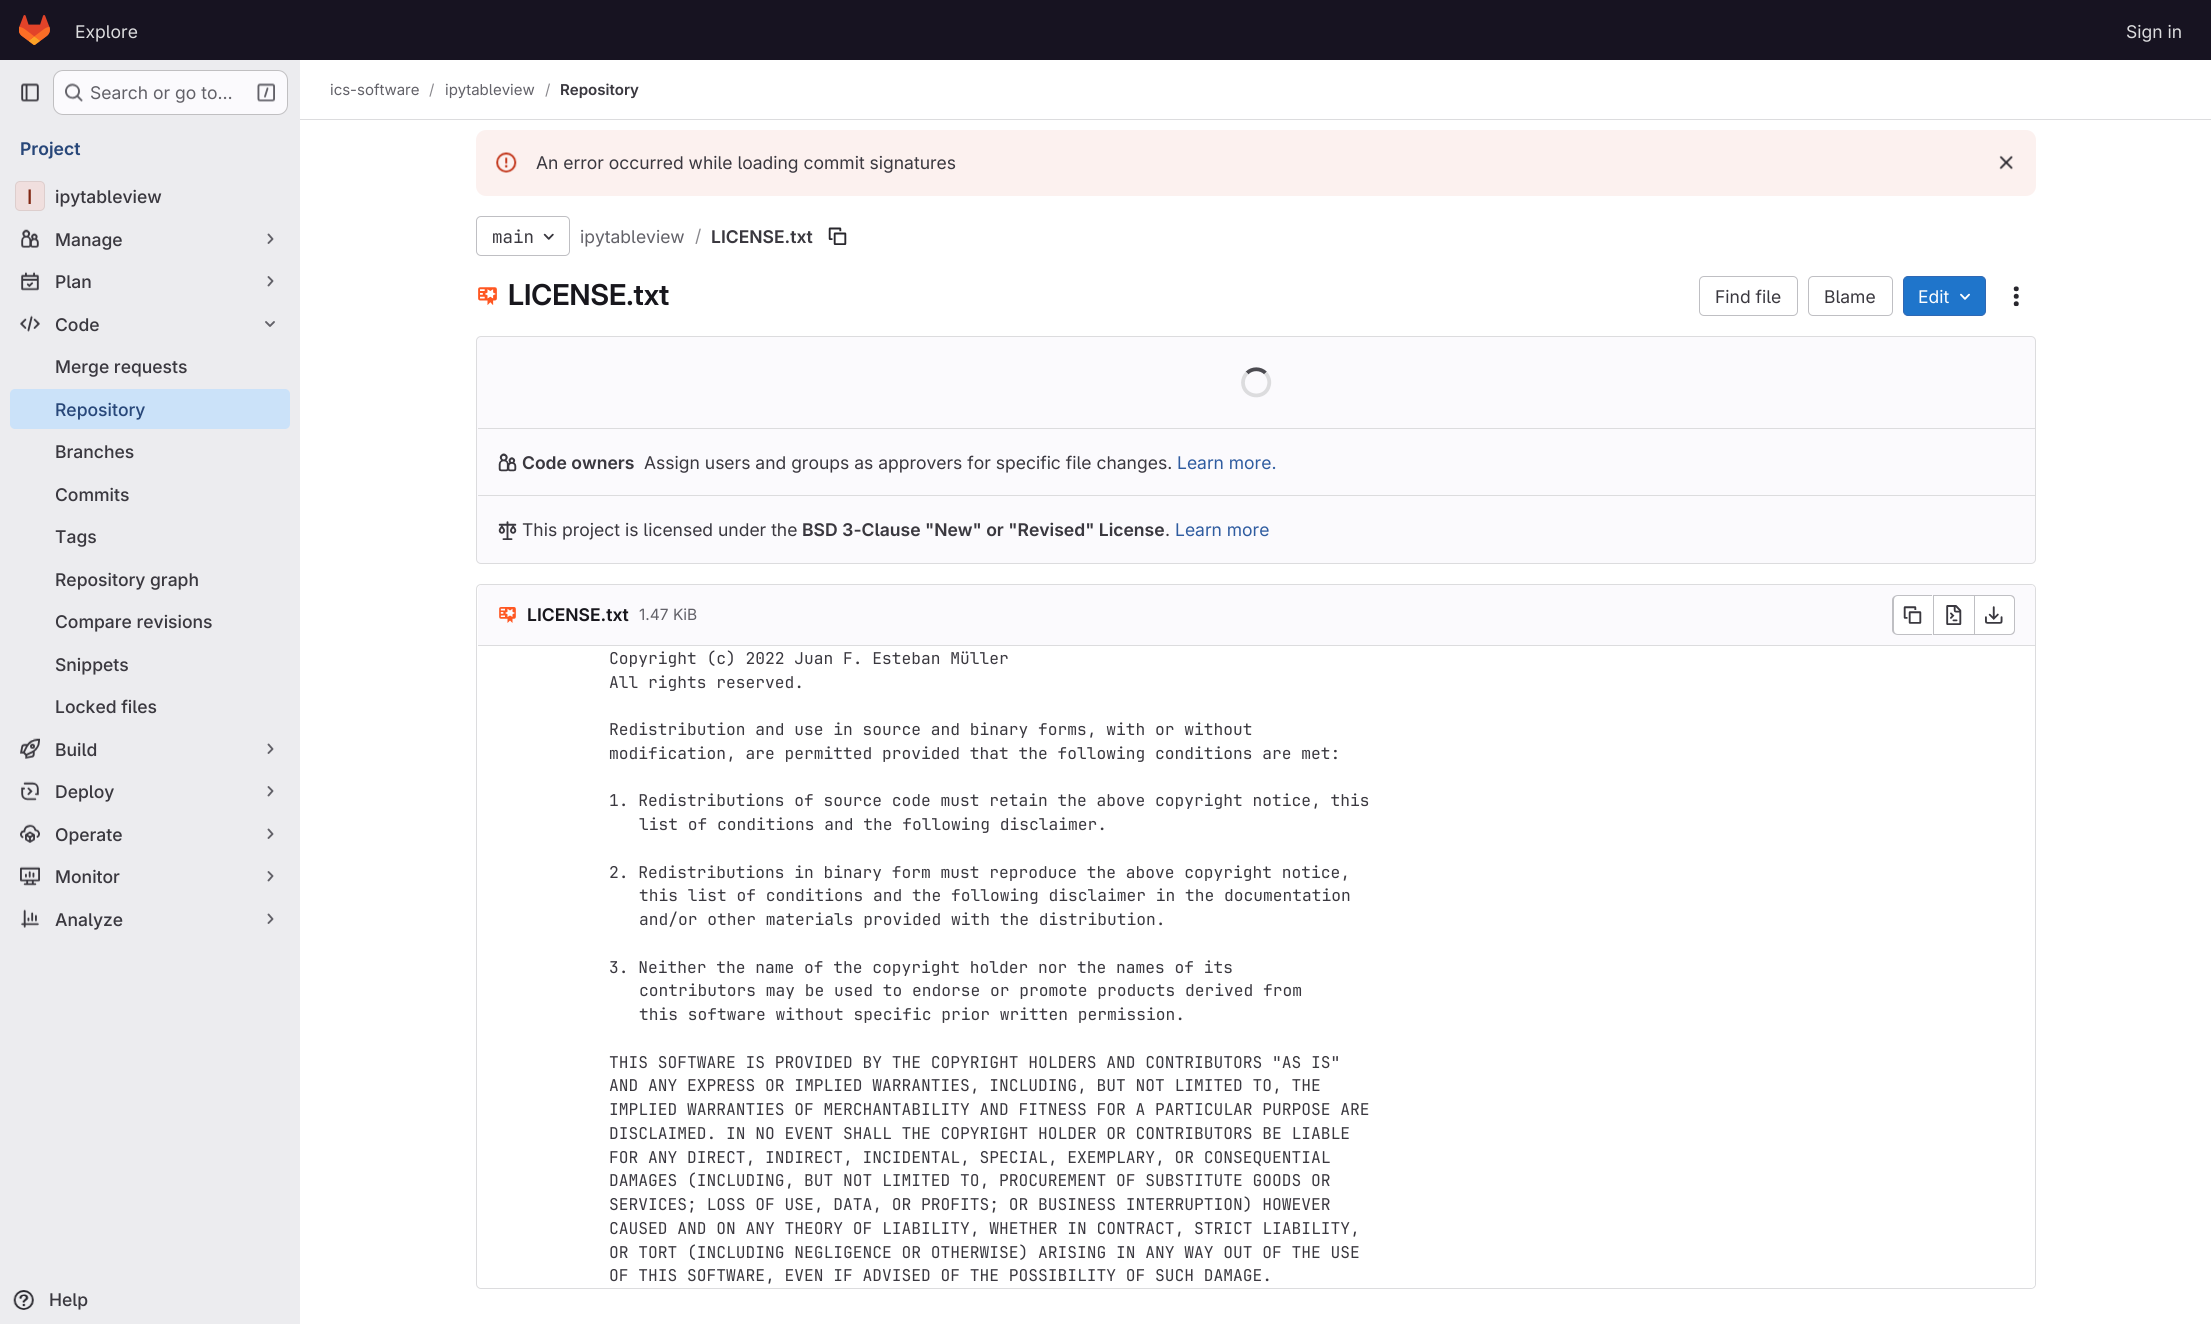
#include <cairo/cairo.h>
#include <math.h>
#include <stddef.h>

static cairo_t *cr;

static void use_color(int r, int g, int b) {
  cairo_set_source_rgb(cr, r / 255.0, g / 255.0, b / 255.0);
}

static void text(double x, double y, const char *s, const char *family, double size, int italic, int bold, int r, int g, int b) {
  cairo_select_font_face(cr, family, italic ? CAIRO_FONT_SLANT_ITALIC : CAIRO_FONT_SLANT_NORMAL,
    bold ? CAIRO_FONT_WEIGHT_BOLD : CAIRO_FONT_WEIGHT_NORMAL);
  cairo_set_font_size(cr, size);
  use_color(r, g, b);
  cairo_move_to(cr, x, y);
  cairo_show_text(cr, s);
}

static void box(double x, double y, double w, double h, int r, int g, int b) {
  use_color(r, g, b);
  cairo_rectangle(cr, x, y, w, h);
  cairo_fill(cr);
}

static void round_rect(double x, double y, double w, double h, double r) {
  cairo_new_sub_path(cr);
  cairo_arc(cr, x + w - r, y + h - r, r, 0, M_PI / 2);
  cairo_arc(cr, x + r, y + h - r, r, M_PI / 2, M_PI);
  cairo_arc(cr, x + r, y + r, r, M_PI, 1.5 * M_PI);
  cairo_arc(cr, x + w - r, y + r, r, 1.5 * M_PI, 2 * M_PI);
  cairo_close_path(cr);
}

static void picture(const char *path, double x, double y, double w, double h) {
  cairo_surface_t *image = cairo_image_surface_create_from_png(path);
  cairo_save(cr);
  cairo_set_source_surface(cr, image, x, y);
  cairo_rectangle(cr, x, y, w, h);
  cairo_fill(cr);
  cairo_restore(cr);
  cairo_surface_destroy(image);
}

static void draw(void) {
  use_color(255, 255, 255);
  cairo_paint(cr);
  box(0, 0, 2211, 60, 23, 19, 33);
  picture("img_01.png", 19, 15, 31, 30);
  box(0, 60, 300, 1264, 236, 236, 239);
  picture("img_02.png", 21, 83, 18, 19);
  use_color(251, 250, 253);
  round_rect(53, 70, 235, 45, 10);
  cairo_fill(cr);
  round_rect(53.5, 70.5, 234, 44, 9.5);
  cairo_set_source_rgba(cr, 0.02, 0.02, 0.024, 0.24);
  cairo_set_line_width(cr, 1);
  cairo_stroke(cr);
  picture("img_03.png", 65, 83, 18, 19);
  picture("img_04.png", 257, 83, 18, 19);
  use_color(240, 223, 222);
  round_rect(15, 181, 30, 30, 5);
  cairo_fill(cr);
  round_rect(15.5, 181.5, 29, 29, 4.5);
  cairo_set_source_rgba(cr, 0.02, 0.02, 0.024, 0.08);
  cairo_stroke(cr);
  picture("img_05.png", 21, 229, 18, 19);
  cairo_new_path(cr);
  cairo_move_to(cr, 268.5, 234.5);
  cairo_line_to(cr, 272.5, 239);
  cairo_line_to(cr, 268.5, 243);
  use_color(98, 97, 104);
  cairo_set_line_width(cr, 1.9);
  cairo_set_line_cap(cr, CAIRO_LINE_CAP_ROUND);
  cairo_set_line_join(cr, CAIRO_LINE_JOIN_ROUND);
  cairo_stroke(cr);
  picture("img_06.png", 21, 271, 18, 20);
  cairo_new_path(cr);
  cairo_move_to(cr, 268.5, 277);
  cairo_line_to(cr, 272.5, 281);
  cairo_line_to(cr, 268.5, 285.5);
  cairo_stroke(cr);
  picture("img_07.png", 20, 315, 20, 17);
  cairo_new_path(cr);
  cairo_move_to(cr, 274, 322);
  cairo_line_to(cr, 270, 326);
  cairo_line_to(cr, 266, 322);
  cairo_stroke(cr);
  use_color(203, 226, 249);
  round_rect(10, 389, 280, 40, 5);
  cairo_fill(cr);
  picture("img_08.png", 20, 738, 20, 21);
  cairo_new_path(cr);
  cairo_move_to(cr, 268.5, 744.5);
  cairo_line_to(cr, 272.5, 749);
  cairo_line_to(cr, 268.5, 753);
  use_color(98, 97, 104);
  cairo_stroke(cr);
  picture("img_09.png", 21, 781, 18, 20);
  cairo_new_path(cr);
  cairo_move_to(cr, 268.5, 787);
  cairo_line_to(cr, 272.5, 791);
  cairo_line_to(cr, 268.5, 795.5);
  cairo_stroke(cr);
  picture("img_10.png", 20, 824, 20, 19);
  cairo_new_path(cr);
  cairo_move_to(cr, 268.5, 829.5);
  cairo_line_to(cr, 272.5, 834);
  cairo_line_to(cr, 268.5, 838);
  cairo_stroke(cr);
  picture("img_11.png", 20, 866, 20, 20);
  cairo_new_path(cr);
  cairo_move_to(cr, 268.5, 872);
  cairo_line_to(cr, 272.5, 876);
  cairo_line_to(cr, 268.5, 880.5);
  cairo_stroke(cr);
  picture("img_12.png", 21, 909, 18, 19);
  cairo_new_path(cr);
  cairo_move_to(cr, 268.5, 914.5);
  cairo_line_to(cr, 272.5, 919);
  cairo_line_to(cr, 268.5, 923);
  cairo_stroke(cr);
  picture("img_13.png", 13, 1290, 21, 20);
  box(300, 119, 1911, 1, 220, 220, 222);
  use_color(252, 241, 239);
  round_rect(476, 130, 1560, 66, 10);
  cairo_fill(cr);
  picture("img_14.png", 496, 152, 21, 21);
  picture("img_15.png", 1999, 155, 14, 15);
  round_rect(476.5, 216.5, 93, 39, 4.5);
  use_color(191, 191, 195);
  cairo_set_line_width(cr, 1);
  cairo_set_line_cap(cr, CAIRO_LINE_CAP_BUTT);
  cairo_set_line_join(cr, CAIRO_LINE_JOIN_MITER);
  cairo_stroke(cr);
  picture("img_16.png", 543, 233, 11, 7);
  picture("img_17.png", 828, 227, 19, 18);
  picture("img_18.png", 478, 287, 19, 18);
  round_rect(1699.5, 276.5, 98, 39, 4.5);
  cairo_stroke(cr);
  round_rect(1808.5, 276.5, 84, 39, 4.5);
  cairo_stroke(cr);
  use_color(31, 117, 203);
  round_rect(1903.5, 276.5, 82, 39, 4.5);
  cairo_fill_preserve(cr);
  use_color(47, 104, 180);
  cairo_stroke(cr);
  picture("img_19.png", 1960, 293, 10, 7);
  picture("img_20.png", 2013, 286, 6, 21);
  use_color(251, 250, 253);
  round_rect(476.5, 336.5, 1559, 227, 4.5);
  cairo_fill_preserve(cr);
  use_color(220, 220, 222);
  cairo_stroke(cr);
  cairo_new_path(cr);
  cairo_move_to(cr, 1247, 373);
  cairo_curve_to(cr, 1252, 368, 1260.5, 368, 1265.5, 373);
  use_color(76, 75, 81);
  cairo_set_line_width(cr, 3.8);
  cairo_stroke(cr);
  cairo_new_path(cr);
  cairo_move_to(cr, 1265.5, 373);
  cairo_curve_to(cr, 1268.5, 376.5, 1270, 381, 1269, 385);
  cairo_curve_to(cr, 1266, 400.5, 1243, 398, 1243, 382.5);
  cairo_curve_to(cr, 1243, 379, 1244.5, 375.5, 1247, 373);
  use_color(220, 220, 222);
  cairo_stroke(cr);
  box(478, 428, 1557, 1, 220, 220, 222);
  picture("img_21.png", 498, 453, 19, 19);
  box(478, 495, 1557, 1, 220, 220, 222);
  picture("img_22.png", 498, 521, 19, 19);
  round_rect(476.5, 584.5, 1559, 704, 4.5);
  cairo_set_line_width(cr, 1);
  cairo_stroke(cr);
  use_color(251, 250, 253);
  cairo_new_path(cr);
  cairo_move_to(cr, 482, 585);
  cairo_line_to(cr, 2031, 585);
  cairo_curve_to(cr, 2033, 585, 2035, 587, 2035, 589);
  cairo_line_to(cr, 2035, 646);
  cairo_line_to(cr, 478, 646);
  cairo_line_to(cr, 478, 589);
  cairo_curve_to(cr, 478, 587, 480, 585, 482, 585);
  cairo_close_path(cr);
  cairo_fill(cr);
  box(478, 645, 1557, 1, 220, 220, 222);
  picture("img_23.png", 499, 607, 17, 16);
  use_color(255, 255, 255);
  cairo_new_path(cr);
  cairo_move_to(cr, 1898, 596);
  cairo_line_to(cr, 1933, 596);
  cairo_line_to(cr, 1933, 634);
  cairo_line_to(cr, 1898, 634);
  cairo_curve_to(cr, 1896, 634, 1894, 632, 1894, 630);
  cairo_line_to(cr, 1894, 600);
  cairo_curve_to(cr, 1894, 598, 1896, 596, 1898, 596);
  cairo_close_path(cr);
  cairo_fill(cr);
  use_color(191, 191, 195);
  cairo_set_fill_rule(cr, CAIRO_FILL_RULE_EVEN_ODD);
  cairo_new_path(cr);
  cairo_move_to(cr, 1898, 595);
  cairo_line_to(cr, 1932, 595);
  cairo_line_to(cr, 1932, 635);
  cairo_line_to(cr, 1898, 635);
  cairo_curve_to(cr, 1895, 635, 1892, 633, 1892, 630);
  cairo_line_to(cr, 1892, 600);
  cairo_curve_to(cr, 1892, 597, 1895, 595, 1898, 595);
  cairo_close_path(cr);
  cairo_move_to(cr, 1898, 596);
  cairo_line_to(cr, 1932, 596);
  cairo_line_to(cr, 1932, 634);
  cairo_line_to(cr, 1898, 634);
  cairo_curve_to(cr, 1895, 634, 1894, 632, 1894, 630);
  cairo_line_to(cr, 1894, 600);
  cairo_curve_to(cr, 1894, 598, 1895, 596, 1898, 596);
  cairo_close_path(cr);
  cairo_fill(cr);
  picture("img_24.png", 1903, 606, 19, 18);
  box(1934, 596, 40, 38, 255, 255, 255);
  box(1934, 595, 40, 1, 191, 191, 195);
  box(1934, 634, 40, 1, 191, 191, 195);
  box(1933, 595, 1, 40, 191, 191, 195);
  picture("img_25.png", 1946, 605, 16, 20);
  use_color(255, 255, 255);
  cairo_new_path(cr);
  cairo_move_to(cr, 1975, 596);
  cairo_line_to(cr, 2010, 596);
  cairo_curve_to(cr, 2012, 596, 2014, 598, 2014, 600);
  cairo_line_to(cr, 2014, 630);
  cairo_curve_to(cr, 2014, 632, 2012, 634, 2010, 634);
  cairo_line_to(cr, 1975, 634);
  cairo_close_path(cr);
  cairo_fill(cr);
  use_color(191, 191, 195);
  cairo_new_path(cr);
  cairo_move_to(cr, 1975, 595);
  cairo_line_to(cr, 2010, 595);
  cairo_curve_to(cr, 2013, 595, 2015, 597, 2015, 600);
  cairo_line_to(cr, 2015, 630);
  cairo_curve_to(cr, 2015, 633, 2013, 635, 2010, 635);
  cairo_line_to(cr, 1975, 635);
  cairo_close_path(cr);
  cairo_move_to(cr, 1975, 596);
  cairo_line_to(cr, 2010, 596);
  cairo_curve_to(cr, 2012, 596, 2014, 598, 2014, 600);
  cairo_line_to(cr, 2014, 630);
  cairo_curve_to(cr, 2014, 632, 2012, 634, 2010, 634);
  cairo_line_to(cr, 1975, 634);
  cairo_close_path(cr);
  cairo_fill(cr);
  box(1974, 595, 1, 40, 191, 191, 195);
  picture("img_26.png", 1985, 606, 18, 18);
  use_color(255, 255, 255);
  cairo_new_path(cr);
  cairo_move_to(cr, 478, 646);
  cairo_line_to(cr, 2035, 646);
  cairo_line_to(cr, 2035, 1283);
  cairo_curve_to(cr, 2035, 1286, 2033, 1288, 2030, 1288);
  cairo_line_to(cr, 483, 1288);
  cairo_curve_to(cr, 480, 1288, 478, 1286, 478, 1283);
  cairo_close_path(cr);
  cairo_fill(cr);
  text(75, 38, "Explore", "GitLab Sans", 17.5, 0, 0, 220, 220, 222);
  text(2126, 38, "Sign in", "GitLab Sans", 17.5, 0, 0, 220, 220, 222);
  text(90, 99, "Search or go to…", "GitLab Sans", 17.5, 0, 0, 98, 97, 104);
  text(20, 155, "Project", "GitLab Sans SemiBold", 17.5, 0, 0, 40, 71, 121);
  text(27, 204, "I", "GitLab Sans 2 Medium", 20, 0, 0, 129, 39, 19);
  text(55, 203, "ipytableview", "GitLab Sans Medium", 17.5, 0, 0, 58, 56, 63);
  text(55, 246, "Manage", "GitLab Sans Medium", 17.5, 0, 0, 58, 56, 63);
  text(55, 288, "Plan", "GitLab Sans Medium", 17.5, 0, 0, 58, 56, 63);
  text(55, 331, "Code", "GitLab Sans Medium", 17.5, 0, 0, 58, 56, 63);
  text(55, 373, "Merge requests", "GitLab Sans Medium", 17.5, 0, 0, 58, 56, 63);
  text(55, 416, "Repository", "GitLab Sans Medium", 17.5, 0, 0, 40, 71, 121);
  text(55, 458, "Branches", "GitLab Sans Medium", 17.5, 0, 0, 58, 56, 63);
  text(55, 501, "Commits", "GitLab Sans Medium", 17.5, 0, 0, 58, 56, 63);
  text(55, 543, "Tags", "GitLab Sans Medium", 17.5, 0, 0, 58, 56, 63);
  text(55, 586, "Repository graph", "GitLab Sans Medium", 17.5, 0, 0, 58, 56, 63);
  text(55, 628, "Compare revisions", "GitLab Sans Medium", 17.5, 0, 0, 58, 56, 63);
  text(55, 671, "Snippets", "GitLab Sans Medium", 17.5, 0, 0, 58, 56, 63);
  text(55, 713, "Locked files", "GitLab Sans Medium", 17.5, 0, 0, 58, 56, 63);
  text(55, 756, "Build", "GitLab Sans Medium", 17.5, 0, 0, 58, 56, 63);
  text(55, 798, "Deploy", "GitLab Sans Medium", 17.5, 0, 0, 58, 56, 63);
  text(55, 841, "Operate", "GitLab Sans Medium", 17.5, 0, 0, 58, 56, 63);
  text(55, 883, "Monitor", "GitLab Sans Medium", 17.5, 0, 0, 58, 56, 63);
  text(55, 926, "Analyze", "GitLab Sans Medium", 17.5, 0, 0, 58, 56, 63);
  text(49, 1306, "Help", "GitLab Sans Medium", 17.5, 0, 0, 58, 56, 63);
  text(330, 95, "ics-software", "GitLab Sans", 15, 0, 0, 98, 97, 104);
  text(429, 95, "/", "GitLab Sans", 15, 0, 0, 137, 136, 141);
  text(445, 95, "ipytableview", "GitLab Sans", 15, 0, 0, 98, 97, 104);
  text(545, 95, "/", "GitLab Sans", 15, 0, 0, 137, 136, 141);
  text(560, 95, "Repository", "GitLab Sans SemiBold", 15, 0, 0, 58, 56, 63);
  text(536, 169, "An error occurred while loading commit signatures", "GitLab Sans", 17.5, 0, 0, 58, 56, 63);
  cairo_save(cr);
  cairo_set_fill_rule(cr, CAIRO_FILL_RULE_WINDING);
  cairo_rectangle(cr, 493, 226, 41, 20);
  cairo_clip(cr);
  text(492, 243, "main", "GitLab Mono", 17.5, 0, 0, 58, 56, 63);
  cairo_restore(cr);
  text(580, 243, "ipytableview", "GitLab Sans", 17.5, 0, 0, 98, 97, 104);
  text(695, 242, "/", "GitLab Sans", 17.5, 0, 0, 137, 136, 141);
  text(711, 243, "LICENSE.txt", "GitLab Sans SemiBold", 17.5, 0, 0, 58, 56, 63);
  text(508, 305, "LICENSE.txt", "GitLab Sans 2 SemiBold", 28.75, 0, 0, 24, 23, 29);
  text(1715, 303, "Find file", "GitLab Sans", 17.5, 0, 0, 58, 56, 63);
  text(1824, 303, "Blame", "GitLab Sans", 17.5, 0, 0, 58, 56, 63);
  text(1918, 303, "Edit", "GitLab Sans", 17.5, 0, 0, 255, 255, 255);
  text(522, 469, "Code owners", "GitLab Sans SemiBold", 17.5, 0, 0, 58, 56, 63);
  text(644, 469, "Assign users and groups as approvers for specific file changes.", "GitLab Sans", 17.5, 0, 0, 58, 56, 63);
  text(1177, 469, "Learn more.", "GitLab Sans", 17.5, 0, 0, 47, 92, 160);
  text(522, 536, "This project is licensed under the", "GitLab Sans", 17.5, 0, 0, 58, 56, 63);
  text(802, 536, "BSD 3-Clause \"New\" or \"Revised\" License", "GitLab Sans SemiBold", 17.5, 0, 0, 58, 56, 63);
  text(1165, 536, ".", "GitLab Sans", 17.5, 0, 0, 58, 56, 63);
  text(1175, 536, "Learn more", "GitLab Sans", 17.5, 0, 0, 47, 92, 160);
  text(527, 621, "LICENSE.txt", "GitLab Sans SemiBold", 17.5, 0, 0, 24, 23, 29);
  text(639, 620, "1.47 KiB", "GitLab Sans", 15.5, 0, 0, 98, 97, 104);
  text(609, 664, "Copyright (c) 2022 Juan F. Esteban Müller", "GitLab Mono", 16.25, 0, 0, 58, 56, 63);
  text(609, 688, "All rights reserved.", "GitLab Mono", 16.25, 0, 0, 58, 56, 63);
  text(609, 735, "Redistribution and use in source and binary forms, with or without", "GitLab Mono", 16.25, 0, 0, 58, 56, 63);
  text(609, 759, "modification, are permitted provided that the following conditions are met:", "GitLab Mono", 16.25, 0, 0, 58, 56, 63);
  text(609, 806, "1. Redistributions of source code must retain the above copyright notice, this", "GitLab Mono", 16.25, 0, 0, 58, 56, 63);
  text(639, 830, "list of conditions and the following disclaimer.", "GitLab Mono", 16.25, 0, 0, 58, 56, 63);
  text(609, 878, "2. Redistributions in binary form must reproduce the above copyright notice,", "GitLab Mono", 16.25, 0, 0, 58, 56, 63);
  text(639, 901, "this list of conditions and the following disclaimer in the documentation", "GitLab Mono", 16.25, 0, 0, 58, 56, 63);
  text(639, 925, "and/or other materials provided with the distribution.", "GitLab Mono", 16.25, 0, 0, 58, 56, 63);
  text(609, 973, "3. Neither the name of the copyright holder nor the names of its", "GitLab Mono", 16.25, 0, 0, 58, 56, 63);
  text(639, 996, "contributors may be used to endorse or promote products derived from", "GitLab Mono", 16.25, 0, 0, 58, 56, 63);
  text(639, 1020, "this software without specific prior written permission.", "GitLab Mono", 16.25, 0, 0, 58, 56, 63);
  text(609, 1068, "THIS SOFTWARE IS PROVIDED BY THE COPYRIGHT HOLDERS AND CONTRIBUTORS \"AS IS\"", "GitLab Mono", 16.25, 0, 0, 58, 56, 63);
  text(609, 1091, "AND ANY EXPRESS OR IMPLIED WARRANTIES, INCLUDING, BUT NOT LIMITED TO, THE", "GitLab Mono", 16.25, 0, 0, 58, 56, 63);
  text(609, 1115, "IMPLIED WARRANTIES OF MERCHANTABILITY AND FITNESS FOR A PARTICULAR PURPOSE ARE", "GitLab Mono", 16.25, 0, 0, 58, 56, 63);
  text(609, 1139, "DISCLAIMED. IN NO EVENT SHALL THE COPYRIGHT HOLDER OR CONTRIBUTORS BE LIABLE", "GitLab Mono", 16.25, 0, 0, 58, 56, 63);
  text(609, 1163, "FOR ANY DIRECT, INDIRECT, INCIDENTAL, SPECIAL, EXEMPLARY, OR CONSEQUENTIAL", "GitLab Mono", 16.25, 0, 0, 58, 56, 63);
  text(609, 1186, "DAMAGES (INCLUDING, BUT NOT LIMITED TO, PROCUREMENT OF SUBSTITUTE GOODS OR", "GitLab Mono", 16.25, 0, 0, 58, 56, 63);
  text(609, 1210, "SERVICES; LOSS OF USE, DATA, OR PROFITS; OR BUSINESS INTERRUPTION) HOWEVER", "GitLab Mono", 16.25, 0, 0, 58, 56, 63);
  text(609, 1234, "CAUSED AND ON ANY THEORY OF LIABILITY, WHETHER IN CONTRACT, STRICT LIABILITY,", "GitLab Mono", 16.25, 0, 0, 58, 56, 63);
  text(609, 1258, "OR TORT (INCLUDING NEGLIGENCE OR OTHERWISE) ARISING IN ANY WAY OUT OF THE USE", "GitLab Mono", 16.25, 0, 0, 58, 56, 63);
  text(609, 1281, "OF THIS SOFTWARE, EVEN IF ADVISED OF THE POSSIBILITY OF SUCH DAMAGE.", "GitLab Mono", 16.25, 0, 0, 58, 56, 63);
}

int main(void) {
  cairo_surface_t *surface = cairo_image_surface_create(CAIRO_FORMAT_RGB24, 2211, 1324);
  cr = cairo_create(surface);
  cairo_font_options_t *options = cairo_font_options_create();
  cairo_font_options_set_hint_metrics(options, CAIRO_HINT_METRICS_OFF);
  cairo_font_options_set_hint_style(options, CAIRO_HINT_STYLE_NONE);
  cairo_set_font_options(cr, options);
  cairo_set_miter_limit(cr, 4);
  draw();
  cairo_surface_write_to_png(surface, "out.png");
  cairo_font_options_destroy(options);
  cairo_destroy(cr);
  cairo_surface_destroy(surface);
  return 0;
}
